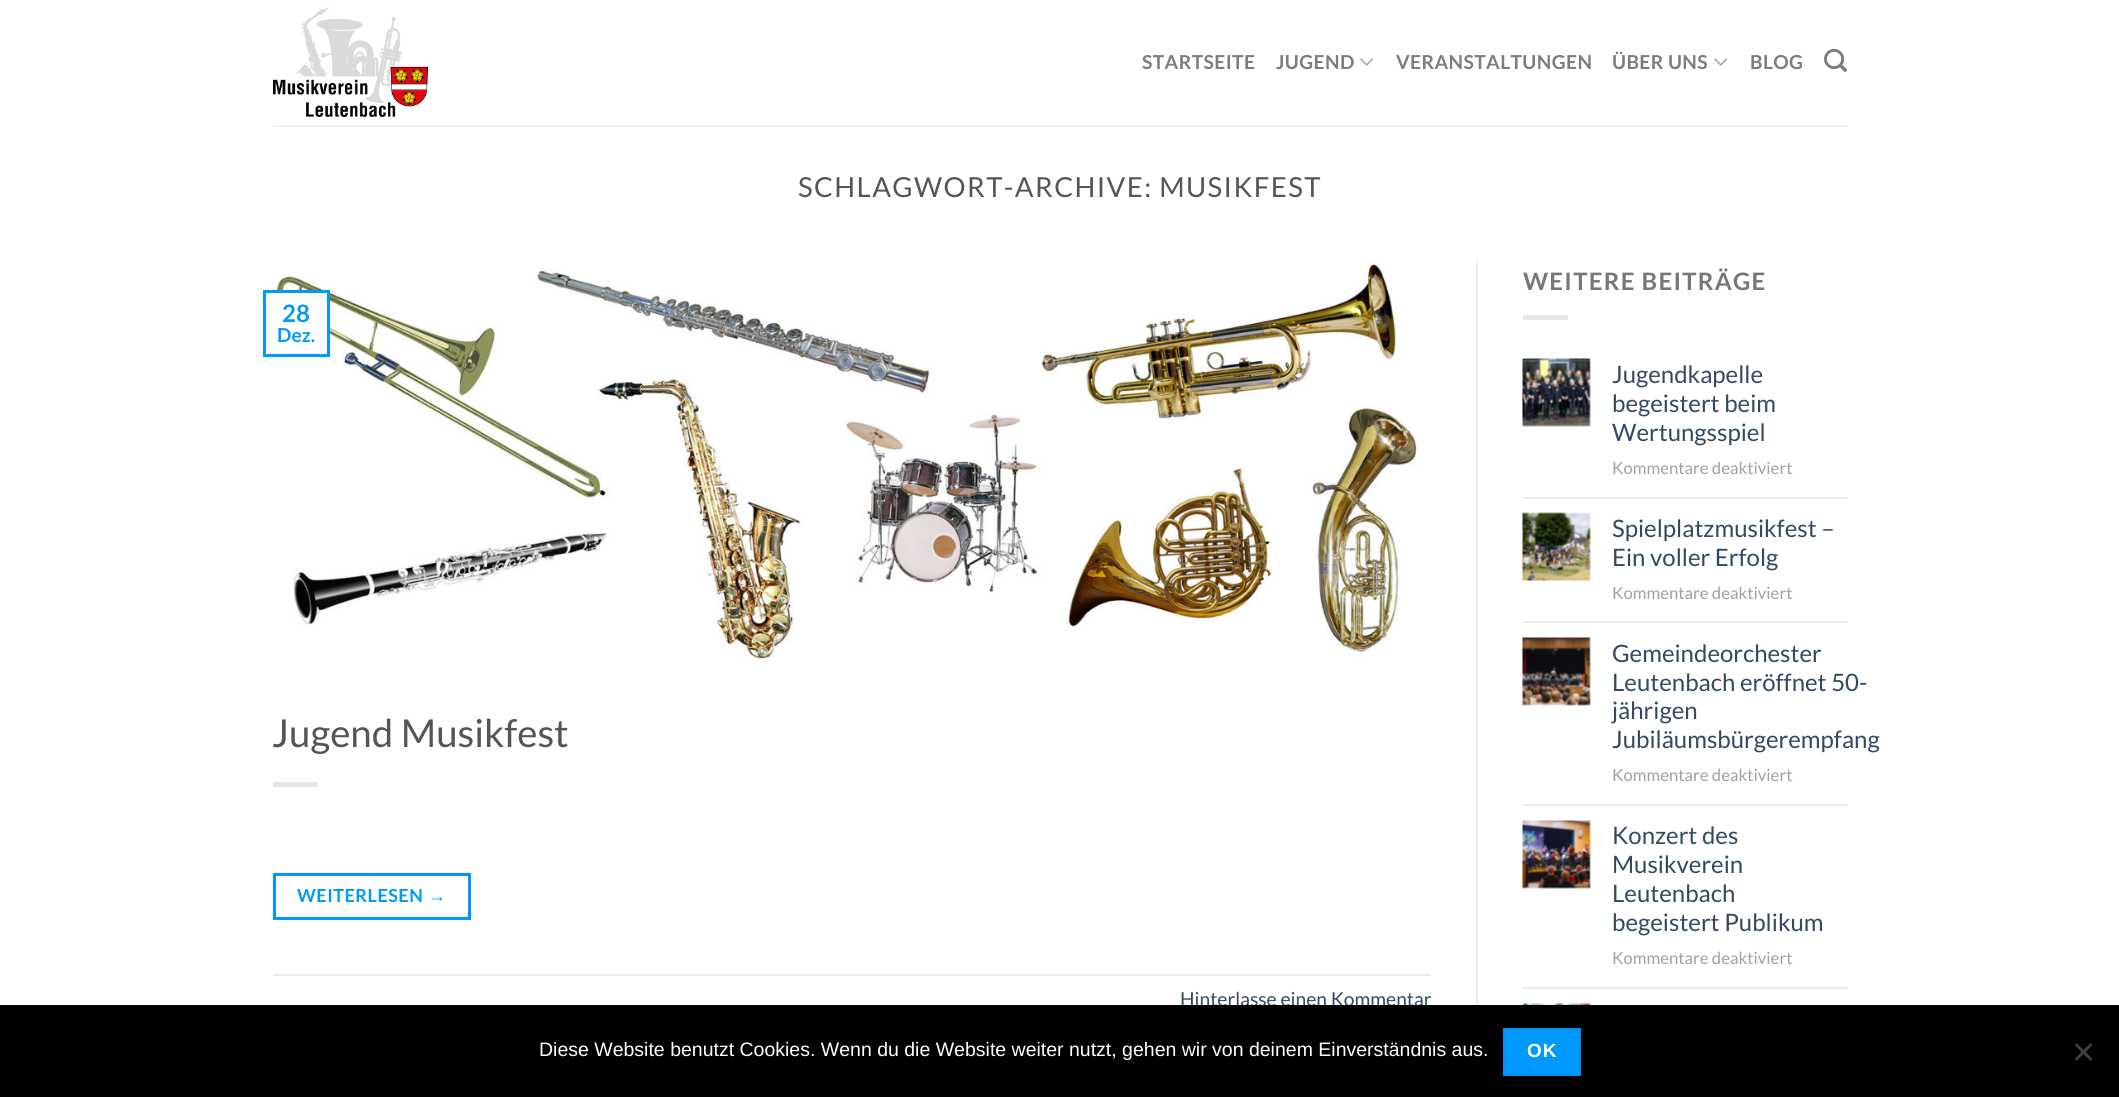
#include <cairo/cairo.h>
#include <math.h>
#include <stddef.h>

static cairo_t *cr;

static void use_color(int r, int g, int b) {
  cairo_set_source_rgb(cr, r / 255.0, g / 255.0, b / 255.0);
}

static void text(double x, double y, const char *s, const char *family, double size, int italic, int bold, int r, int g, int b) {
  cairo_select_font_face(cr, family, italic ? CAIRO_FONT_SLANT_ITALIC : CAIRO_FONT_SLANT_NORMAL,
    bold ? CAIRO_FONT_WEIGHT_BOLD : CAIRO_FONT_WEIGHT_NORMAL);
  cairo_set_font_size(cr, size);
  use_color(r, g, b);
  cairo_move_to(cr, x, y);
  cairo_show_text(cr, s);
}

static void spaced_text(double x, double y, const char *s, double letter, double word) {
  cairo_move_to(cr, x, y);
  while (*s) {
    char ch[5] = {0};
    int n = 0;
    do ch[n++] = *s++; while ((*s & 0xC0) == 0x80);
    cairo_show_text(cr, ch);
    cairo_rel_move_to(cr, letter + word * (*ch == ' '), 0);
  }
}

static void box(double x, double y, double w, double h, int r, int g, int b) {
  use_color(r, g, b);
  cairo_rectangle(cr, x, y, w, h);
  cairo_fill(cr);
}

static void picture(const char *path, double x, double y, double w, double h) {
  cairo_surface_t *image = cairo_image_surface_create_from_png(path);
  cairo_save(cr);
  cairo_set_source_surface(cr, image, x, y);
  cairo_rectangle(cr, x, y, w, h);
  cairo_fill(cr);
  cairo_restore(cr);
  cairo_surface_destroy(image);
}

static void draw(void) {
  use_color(255, 255, 255);
  cairo_paint(cr);
  picture("img_01.png", 273, 7, 156, 110);
  picture("img_02.png", 1360, 58, 14, 8);
  picture("img_02.png", 1714, 58, 14, 8);
  picture("img_03.png", 1824, 48, 23, 24);
  box(273, 125, 1575, 2, 241, 241, 241);
  picture("img_04.png", 273, 261, 1145, 401);
  box(273, 293, 54, 46, 255, 255, 255);
  cairo_rectangle(cr, 264.5, 291.5, 64, 64);
  use_color(0, 154, 255);
  cairo_set_line_width(cr, 3);
  cairo_stroke(cr);
  box(273, 782, 45, 5, 230, 230, 230);
  cairo_rectangle(cr, 274.5, 874.5, 195, 44);
  use_color(0, 154, 255);
  cairo_stroke(cr);
  box(273, 974, 1158, 2, 236, 236, 236);
  box(1476, 261, 2, 744, 236, 236, 236);
  box(1523, 315, 45, 5, 230, 230, 230);
  picture("img_05.png", 1522, 358, 69, 69);
  box(1523, 497, 325, 2, 236, 236, 236);
  picture("img_06.png", 1522, 512, 69, 69);
  box(1523, 621, 325, 2, 236, 236, 236);
  picture("img_07.png", 1522, 637, 69, 69);
  box(1523, 804, 325, 2, 236, 236, 236);
  picture("img_08.png", 1522, 820, 69, 69);
  box(1523, 987, 325, 2, 236, 236, 236);
  picture("img_09.png", 1522, 1003, 68, 2);
  cairo_select_font_face(cr, "Lato", CAIRO_FONT_SLANT_NORMAL, CAIRO_FONT_WEIGHT_BOLD);
  cairo_set_font_size(cr, 19.25);
  use_color(125, 125, 125);
  spaced_text(1142, 69, "STARTSEITE", 0.4, 0);
  spaced_text(1276, 69, "JUGEND", 0.4, 0);
  spaced_text(1396, 69, "VERANSTALTUNGEN", 0.4, 0);
  spaced_text(1612, 69, "ÜBER UNS", 0.4, 0);
  spaced_text(1750, 69, "BLOG", 0.4, 0);
  cairo_select_font_face(cr, "Lato", CAIRO_FONT_SLANT_NORMAL, CAIRO_FONT_WEIGHT_NORMAL);
  cairo_set_font_size(cr, 27.6);
  use_color(85, 85, 85);
  spaced_text(798, 197, "SCHLAGWORT-ARCHIVE: MUSIKFEST", 1.4, 0);
  text(282, 322, "28", "Lato", 24, 0, 1, 0, 154, 255);
  text(277, 342, "Dez.", "Lato", 19.25, 0, 1, 0, 154, 255);
  text(272, 747, "Jugend Musikfest", "Lato", 38.5, 0, 0, 85, 85, 85);
  cairo_select_font_face(cr, "Lato", CAIRO_FONT_SLANT_NORMAL, CAIRO_FONT_WEIGHT_BOLD);
  cairo_set_font_size(cr, 18);
  use_color(0, 154, 255);
  spaced_text(297, 902, "WEITERLESEN", 0.5, 0);
  cairo_select_font_face(cr, "Liberation Sans", CAIRO_FONT_SLANT_NORMAL, CAIRO_FONT_WEIGHT_BOLD);
  spaced_text(428, 902, "→", 0.5, 0);
  text(1180, 1006, "Hinterlasse einen Kommentar", "Lato", 19.25, 0, 0, 51, 72, 98);
  cairo_select_font_face(cr, "Lato", CAIRO_FONT_SLANT_NORMAL, CAIRO_FONT_WEIGHT_BOLD);
  cairo_set_font_size(cr, 24);
  use_color(119, 119, 119);
  spaced_text(1523, 290, "WEITERE BEITRÄGE", 1.25, 0);
  text(1612, 383, "Jugendkapelle", "Lato", 24, 0, 0, 51, 72, 98);
  text(1612, 412, "begeistert beim", "Lato", 24, 0, 0, 51, 72, 98);
  text(1612, 441, "Wertungsspiel", "Lato", 24, 0, 0, 51, 72, 98);
  text(1612, 474, "Kommentare deaktiviert", "Lato", 16.75, 0, 0, 160, 160, 160);
  text(1612, 537, "Spielplatzmusikfest –", "Lato", 24, 0, 0, 51, 72, 98);
  text(1612, 566, "Ein voller Erfolg", "Lato", 24, 0, 0, 51, 72, 98);
  text(1612, 599, "Kommentare deaktiviert", "Lato", 16.75, 0, 0, 160, 160, 160);
  text(1612, 662, "Gemeindeorchester", "Lato", 24, 0, 0, 51, 72, 98);
  text(1612, 691, "Leutenbach eröffnet 50-", "Lato", 24, 0, 0, 51, 72, 98);
  text(1612, 719, "jährigen", "Lato", 24, 0, 0, 51, 72, 98);
  text(1612, 748, "Jubiläumsbürgerempfang", "Lato", 24, 0, 0, 51, 72, 98);
  text(1612, 781, "Kommentare deaktiviert", "Lato", 16.75, 0, 0, 160, 160, 160);
  text(1612, 844, "Konzert des", "Lato", 24, 0, 0, 51, 72, 98);
  text(1612, 873, "Musikverein", "Lato", 24, 0, 0, 51, 72, 98);
  text(1612, 902, "Leutenbach", "Lato", 24, 0, 0, 51, 72, 98);
  text(1612, 931, "begeistert Publikum", "Lato", 24, 0, 0, 51, 72, 98);
  text(1612, 964, "Kommentare deaktiviert", "Lato", 16.75, 0, 0, 160, 160, 160);
  box(0, 1005, 2119, 92, 0, 0, 0);
  text(539, 1056, "Diese Website benutzt Cookies. Wenn du die Website weiter nutzt, gehen wir von deinem Einverständnis aus.", "Liberation Sans", 19.5, 0, 0, 255, 255, 255);
  use_color(0, 154, 255);
  cairo_rectangle(cr, 1504, 1029, 76, 46);
  cairo_fill_preserve(cr);
  use_color(0, 146, 242);
  cairo_set_line_width(cr, 2);
  cairo_stroke(cr);
  cairo_select_font_face(cr, "Liberation Sans", CAIRO_FONT_SLANT_NORMAL, CAIRO_FONT_WEIGHT_BOLD);
  cairo_set_font_size(cr, 19);
  use_color(255, 255, 255);
  spaced_text(1527, 1057, "OK", 1, 0);
  use_color(64, 64, 64);
  cairo_new_path(cr);
  cairo_move_to(cr, 2090.5, 1043);
  cairo_line_to(cr, 2092.5, 1045);
  cairo_line_to(cr, 2076.5, 1061);
  cairo_line_to(cr, 2074.5, 1059);
  cairo_close_path(cr);
  cairo_fill(cr);
  cairo_new_path(cr);
  cairo_move_to(cr, 2074.5, 1045);
  cairo_line_to(cr, 2076.5, 1043);
  cairo_line_to(cr, 2092.5, 1059);
  cairo_line_to(cr, 2090.5, 1061);
  cairo_close_path(cr);
  cairo_fill(cr);
}

int main(void) {
  cairo_surface_t *surface = cairo_image_surface_create(CAIRO_FORMAT_RGB24, 2119, 1097);
  cr = cairo_create(surface);
  cairo_font_options_t *options = cairo_font_options_create();
  cairo_font_options_set_hint_metrics(options, CAIRO_HINT_METRICS_OFF);
  cairo_font_options_set_hint_style(options, CAIRO_HINT_STYLE_NONE);
  cairo_set_font_options(cr, options);
  cairo_set_miter_limit(cr, 4);
  draw();
  cairo_surface_write_to_png(surface, "out.png");
  cairo_font_options_destroy(options);
  cairo_destroy(cr);
  cairo_surface_destroy(surface);
  return 0;
}
